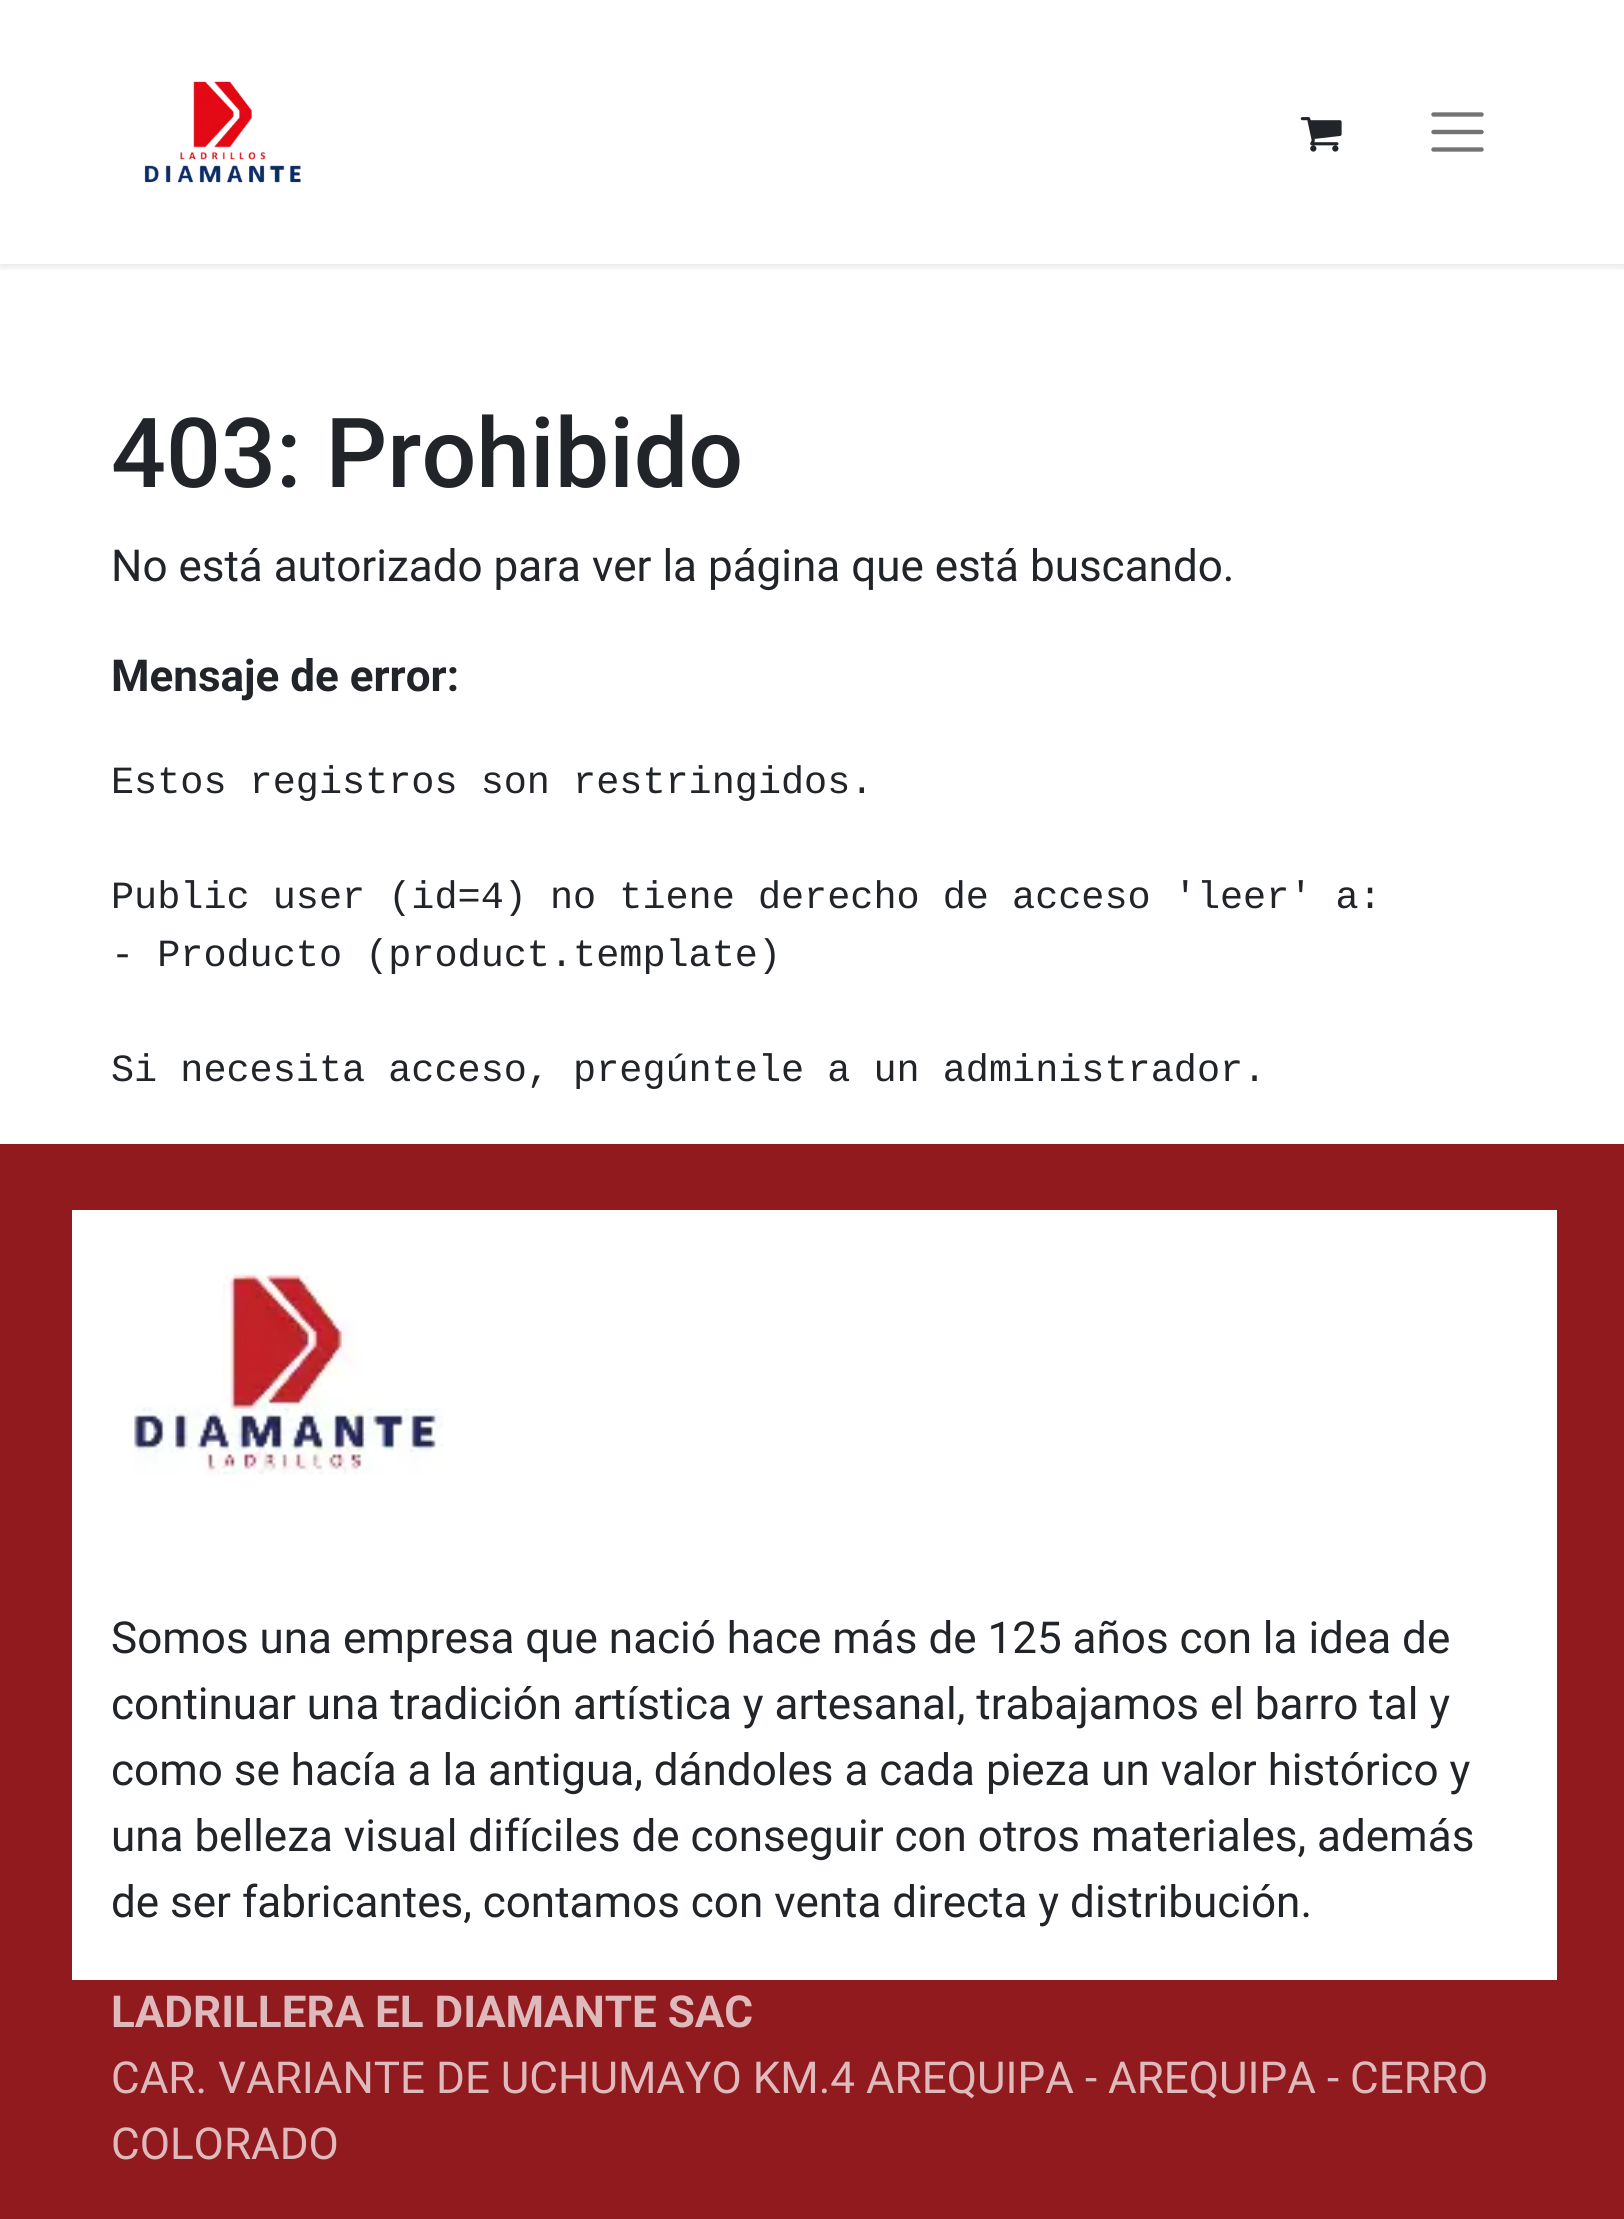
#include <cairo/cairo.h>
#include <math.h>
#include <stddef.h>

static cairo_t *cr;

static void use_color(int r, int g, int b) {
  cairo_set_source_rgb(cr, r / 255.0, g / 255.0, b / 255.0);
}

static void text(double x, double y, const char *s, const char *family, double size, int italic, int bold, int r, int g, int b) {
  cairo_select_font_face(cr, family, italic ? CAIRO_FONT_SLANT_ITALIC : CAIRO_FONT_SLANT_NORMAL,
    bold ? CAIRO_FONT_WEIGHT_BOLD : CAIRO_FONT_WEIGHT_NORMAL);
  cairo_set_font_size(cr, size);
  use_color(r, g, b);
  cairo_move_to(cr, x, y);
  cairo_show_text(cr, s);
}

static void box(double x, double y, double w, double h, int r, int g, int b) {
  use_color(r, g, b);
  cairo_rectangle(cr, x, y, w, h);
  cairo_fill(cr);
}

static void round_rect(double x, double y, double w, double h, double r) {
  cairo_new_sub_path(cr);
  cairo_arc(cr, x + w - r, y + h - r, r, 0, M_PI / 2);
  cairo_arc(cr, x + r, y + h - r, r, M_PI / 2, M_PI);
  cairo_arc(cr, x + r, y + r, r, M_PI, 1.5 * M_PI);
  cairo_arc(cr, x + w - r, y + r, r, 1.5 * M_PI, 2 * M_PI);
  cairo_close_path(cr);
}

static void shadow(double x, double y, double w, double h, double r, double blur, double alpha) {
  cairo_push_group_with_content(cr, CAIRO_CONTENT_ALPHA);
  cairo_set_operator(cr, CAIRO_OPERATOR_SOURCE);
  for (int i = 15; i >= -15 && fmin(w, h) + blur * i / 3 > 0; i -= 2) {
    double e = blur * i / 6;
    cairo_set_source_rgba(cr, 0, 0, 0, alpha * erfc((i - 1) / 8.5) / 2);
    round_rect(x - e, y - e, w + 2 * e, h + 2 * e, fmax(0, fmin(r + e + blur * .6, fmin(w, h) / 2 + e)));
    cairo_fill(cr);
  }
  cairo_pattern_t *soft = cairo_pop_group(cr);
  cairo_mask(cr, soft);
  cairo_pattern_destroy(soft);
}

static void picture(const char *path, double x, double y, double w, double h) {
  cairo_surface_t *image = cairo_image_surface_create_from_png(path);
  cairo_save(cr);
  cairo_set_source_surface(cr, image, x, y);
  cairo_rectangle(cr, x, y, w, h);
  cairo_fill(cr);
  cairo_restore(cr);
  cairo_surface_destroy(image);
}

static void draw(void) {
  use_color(255, 255, 255);
  cairo_paint(cr);
  cairo_save(cr);
  cairo_rectangle(cr, 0, 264, 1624, 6);
  cairo_clip(cr);
  use_color(0, 0, 0);
  shadow(0, 3, 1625, 264, 0, 4, 0.1);
  cairo_restore(cr);
  picture("img_01.png", 144, 81, 157, 102);
  picture("img_02.png", 1300, 117, 42, 35);
  cairo_new_path(cr);
  cairo_move_to(cr, 1433.5, 114.5);
  cairo_line_to(cr, 1481.5, 114.5);
  cairo_move_to(cr, 1433.5, 132);
  cairo_line_to(cr, 1481.5, 132);
  cairo_move_to(cr, 1433.5, 149.5);
  cairo_line_to(cr, 1481.5, 149.5);
  use_color(115, 115, 115);
  cairo_set_line_width(cr, 4.4);
  cairo_set_line_cap(cr, CAIRO_LINE_CAP_ROUND);
  cairo_stroke(cr);
  box(0, 1144, 1624, 1075, 145, 26, 30);
  box(72, 1210, 1485, 770, 255, 255, 255);
  picture("img_03.png", 134, 1273, 310, 202);
  text(111, 487, "403: Prohibido", "Roboto Medium", 96.75, 0, 0, 33, 37, 41);
  text(111, 581, "No está autorizado para ver la página que está buscando.", "Roboto", 44, 0, 0, 33, 37, 41);
  text(111, 691, "Mensaje de error:", "Roboto", 44, 0, 1, 33, 37, 41);
  text(111, 793, "Estos registros son restringidos.", "Liberation Mono", 38.5, 0, 0, 33, 37, 41);
  text(111, 908, "Public user (id=4) no tiene derecho de acceso 'leer' a:", "Liberation Mono", 38.5, 0, 0, 33, 37, 41);
  text(111, 966, "- Producto (product.template)", "Liberation Mono", 38.5, 0, 0, 33, 37, 41);
  text(111, 1081, "Si necesita acceso, pregúntele a un administrador.", "Liberation Mono", 38.5, 0, 0, 33, 37, 41);
  text(111, 1653, "Somos una empresa que nació hace más de 125 años con la idea de", "Roboto", 44, 0, 0, 33, 37, 41);
  text(111, 1719, "continuar una tradición artística y artesanal, trabajamos el barro tal y", "Roboto", 44, 0, 0, 33, 37, 41);
  text(111, 1785, "como se hacía a la antigua, dándoles a cada pieza un valor histórico y", "Roboto", 44, 0, 0, 33, 37, 41);
  text(111, 1851, "una belleza visual difíciles de conseguir con otros materiales, además", "Roboto", 44, 0, 0, 33, 37, 41);
  text(111, 1917, "de ser fabricantes, contamos con venta directa y distribución.", "Roboto", 44, 0, 0, 33, 37, 41);
  text(111, 2027, "LADRILLERA EL DIAMANTE SAC", "Roboto", 44, 0, 1, 222, 186, 188);
  text(111, 2093, "CAR. VARIANTE DE UCHUMAYO KM.4 AREQUIPA - AREQUIPA - CERRO", "Roboto", 44, 0, 0, 222, 186, 188);
  text(111, 2159, "COLORADO", "Roboto", 44, 0, 0, 222, 186, 188);
}

int main(void) {
  cairo_surface_t *surface = cairo_image_surface_create(CAIRO_FORMAT_RGB24, 1624, 2219);
  cr = cairo_create(surface);
  cairo_font_options_t *options = cairo_font_options_create();
  cairo_font_options_set_hint_metrics(options, CAIRO_HINT_METRICS_OFF);
  cairo_font_options_set_hint_style(options, CAIRO_HINT_STYLE_NONE);
  cairo_set_font_options(cr, options);
  cairo_set_miter_limit(cr, 4);
  draw();
  cairo_surface_write_to_png(surface, "out.png");
  cairo_font_options_destroy(options);
  cairo_destroy(cr);
  cairo_surface_destroy(surface);
  return 0;
}
